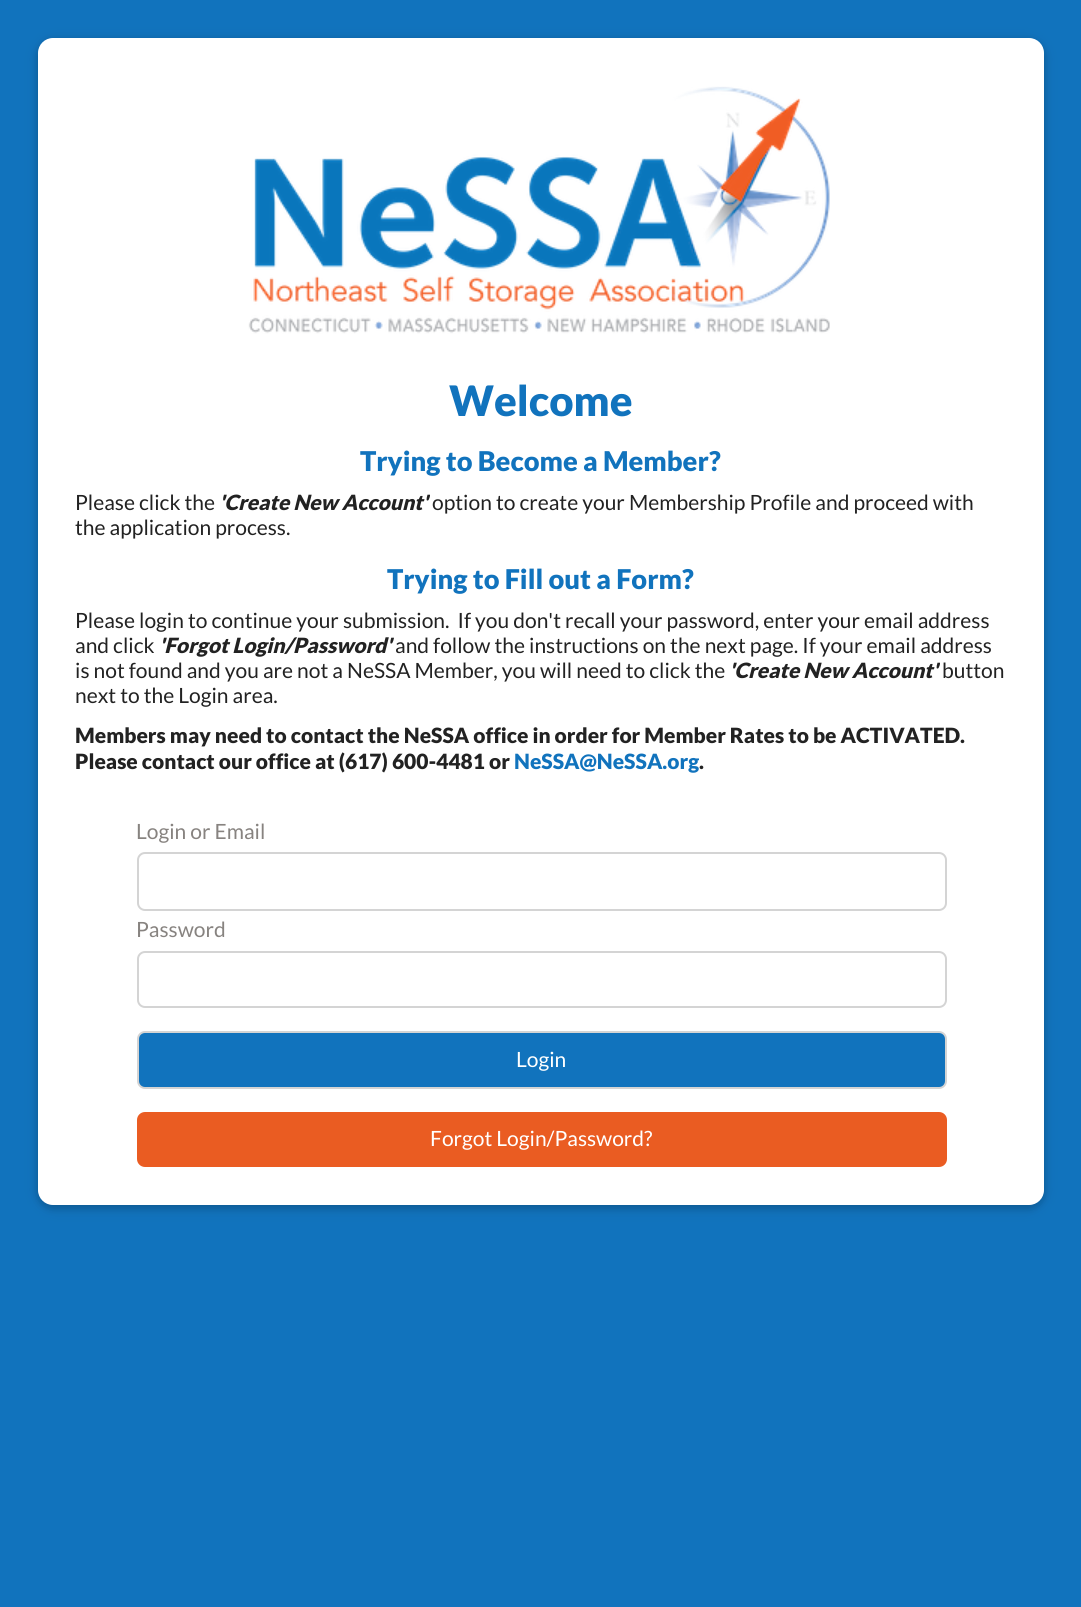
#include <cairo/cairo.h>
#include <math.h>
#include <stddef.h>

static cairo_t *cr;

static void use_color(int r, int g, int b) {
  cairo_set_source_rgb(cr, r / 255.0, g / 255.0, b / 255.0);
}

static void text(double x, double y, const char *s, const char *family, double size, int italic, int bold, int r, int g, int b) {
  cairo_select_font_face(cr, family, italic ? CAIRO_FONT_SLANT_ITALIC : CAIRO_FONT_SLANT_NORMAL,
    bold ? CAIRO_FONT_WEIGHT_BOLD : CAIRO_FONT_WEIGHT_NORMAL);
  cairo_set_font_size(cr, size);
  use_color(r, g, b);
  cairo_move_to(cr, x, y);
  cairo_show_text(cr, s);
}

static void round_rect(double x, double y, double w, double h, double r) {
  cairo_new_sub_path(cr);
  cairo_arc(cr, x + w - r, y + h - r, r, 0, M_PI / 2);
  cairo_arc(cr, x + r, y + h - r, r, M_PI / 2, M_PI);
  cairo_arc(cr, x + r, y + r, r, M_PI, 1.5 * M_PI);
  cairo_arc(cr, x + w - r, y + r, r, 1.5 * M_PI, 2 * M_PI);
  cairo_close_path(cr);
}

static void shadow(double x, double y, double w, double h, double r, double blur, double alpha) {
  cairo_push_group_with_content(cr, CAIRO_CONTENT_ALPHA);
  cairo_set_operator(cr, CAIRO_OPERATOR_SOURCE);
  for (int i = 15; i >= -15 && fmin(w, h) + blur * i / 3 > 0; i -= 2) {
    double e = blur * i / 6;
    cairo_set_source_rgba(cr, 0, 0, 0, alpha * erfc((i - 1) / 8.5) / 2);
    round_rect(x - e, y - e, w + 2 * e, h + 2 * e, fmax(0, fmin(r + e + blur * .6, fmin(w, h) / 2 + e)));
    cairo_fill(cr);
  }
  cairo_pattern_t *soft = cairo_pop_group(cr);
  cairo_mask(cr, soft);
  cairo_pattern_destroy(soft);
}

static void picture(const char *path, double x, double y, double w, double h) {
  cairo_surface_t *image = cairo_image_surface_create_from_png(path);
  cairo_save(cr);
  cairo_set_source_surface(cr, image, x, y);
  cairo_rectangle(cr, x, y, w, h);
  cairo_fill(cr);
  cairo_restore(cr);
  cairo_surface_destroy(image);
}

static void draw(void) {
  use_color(17, 115, 189);
  cairo_paint(cr);
  use_color(0, 0, 0);
  shadow(38, 41, 1006, 1167, 15, 7.5, 0.12);
  shadow(38, 41, 1006, 1167, 15, 4, 0.16);
  use_color(255, 255, 255);
  round_rect(38, 38, 1006, 1167, 15);
  cairo_fill(cr);
  picture("img_01.png", 248, 86, 582, 248);
  round_rect(138, 853, 808, 57, 7);
  use_color(212, 212, 212);
  cairo_stroke(cr);
  round_rect(138, 952, 808, 55, 7);
  cairo_stroke(cr);
  use_color(17, 115, 189);
  round_rect(138, 1032, 808, 56, 7);
  cairo_fill_preserve(cr);
  use_color(212, 212, 212);
  cairo_stroke(cr);
  use_color(234, 92, 34);
  round_rect(137, 1112, 810, 55, 8);
  cairo_fill(cr);
  text(449, 416, "Welcome", "Lato Black", 42, 0, 0, 17, 115, 189);
  text(360, 471, "Trying to Become a Member?", "Lato Black", 27.25, 0, 0, 17, 115, 189);
  text(75, 510, "Please click the", "Lato", 21, 0, 0, 34, 34, 34);
  text(219, 510, "'Create New Account'", "Lato Black", 21, 1, 0, 34, 34, 34);
  text(432, 510, "option to create your Membership Profile and proceed with", "Lato", 21, 0, 0, 34, 34, 34);
  text(75, 535, "the application process.", "Lato", 21, 0, 0, 34, 34, 34);
  text(387, 589, "Trying to Fill out a Form?", "Lato Black", 27.25, 0, 0, 17, 115, 189);
  text(75, 628, "Please login to continue your submission.  If you don't recall your password, enter your email address", "Lato", 21, 0, 0, 34, 34, 34);
  text(75, 653, "and click", "Lato", 21, 0, 0, 34, 34, 34);
  text(159, 653, "'Forgot Login/Password'", "Lato Black", 21, 1, 0, 34, 34, 34);
  text(395, 653, "and follow the instructions on the next page. If your email address", "Lato", 21, 0, 0, 34, 34, 34);
  text(75, 678, "is not found and you are not a NeSSA Member, you will need to click the", "Lato", 21, 0, 0, 34, 34, 34);
  text(729, 678, "'Create New Account'", "Lato Black", 21, 1, 0, 34, 34, 34);
  text(942, 678, "button", "Lato", 21, 0, 0, 34, 34, 34);
  text(75, 703, "next to the Login area.", "Lato", 21, 0, 0, 34, 34, 34);
  text(75, 743, "Members may need to contact the NeSSA office in order for Member Rates to be ACTIVATED.", "Lato Black", 21, 0, 0, 34, 34, 34);
  text(75, 769, "Please contact our office at (617) 600-4481 or", "Lato Black", 21, 0, 0, 34, 34, 34);
  text(514, 769, "NeSSA@NeSSA.org", "Lato Black", 21, 0, 0, 17, 115, 189);
  text(699, 769, ".", "Lato Black", 21, 0, 0, 34, 34, 34);
  text(136, 839, "Login or Email", "Lato", 21, 0, 0, 135, 131, 128);
  text(136, 937, "Password", "Lato", 21, 0, 0, 135, 131, 128);
  text(516, 1067, "Login", "Lato", 21, 0, 0, 255, 255, 255);
  text(430, 1146, "Forgot Login/Password?", "Lato", 21, 0, 0, 255, 255, 255);
}

int main(void) {
  cairo_surface_t *surface = cairo_image_surface_create(CAIRO_FORMAT_RGB24, 1081, 1607);
  cr = cairo_create(surface);
  cairo_font_options_t *options = cairo_font_options_create();
  cairo_font_options_set_hint_metrics(options, CAIRO_HINT_METRICS_OFF);
  cairo_font_options_set_hint_style(options, CAIRO_HINT_STYLE_NONE);
  cairo_set_font_options(cr, options);
  cairo_set_miter_limit(cr, 4);
  draw();
  cairo_surface_write_to_png(surface, "out.png");
  cairo_font_options_destroy(options);
  cairo_destroy(cr);
  cairo_surface_destroy(surface);
  return 0;
}
